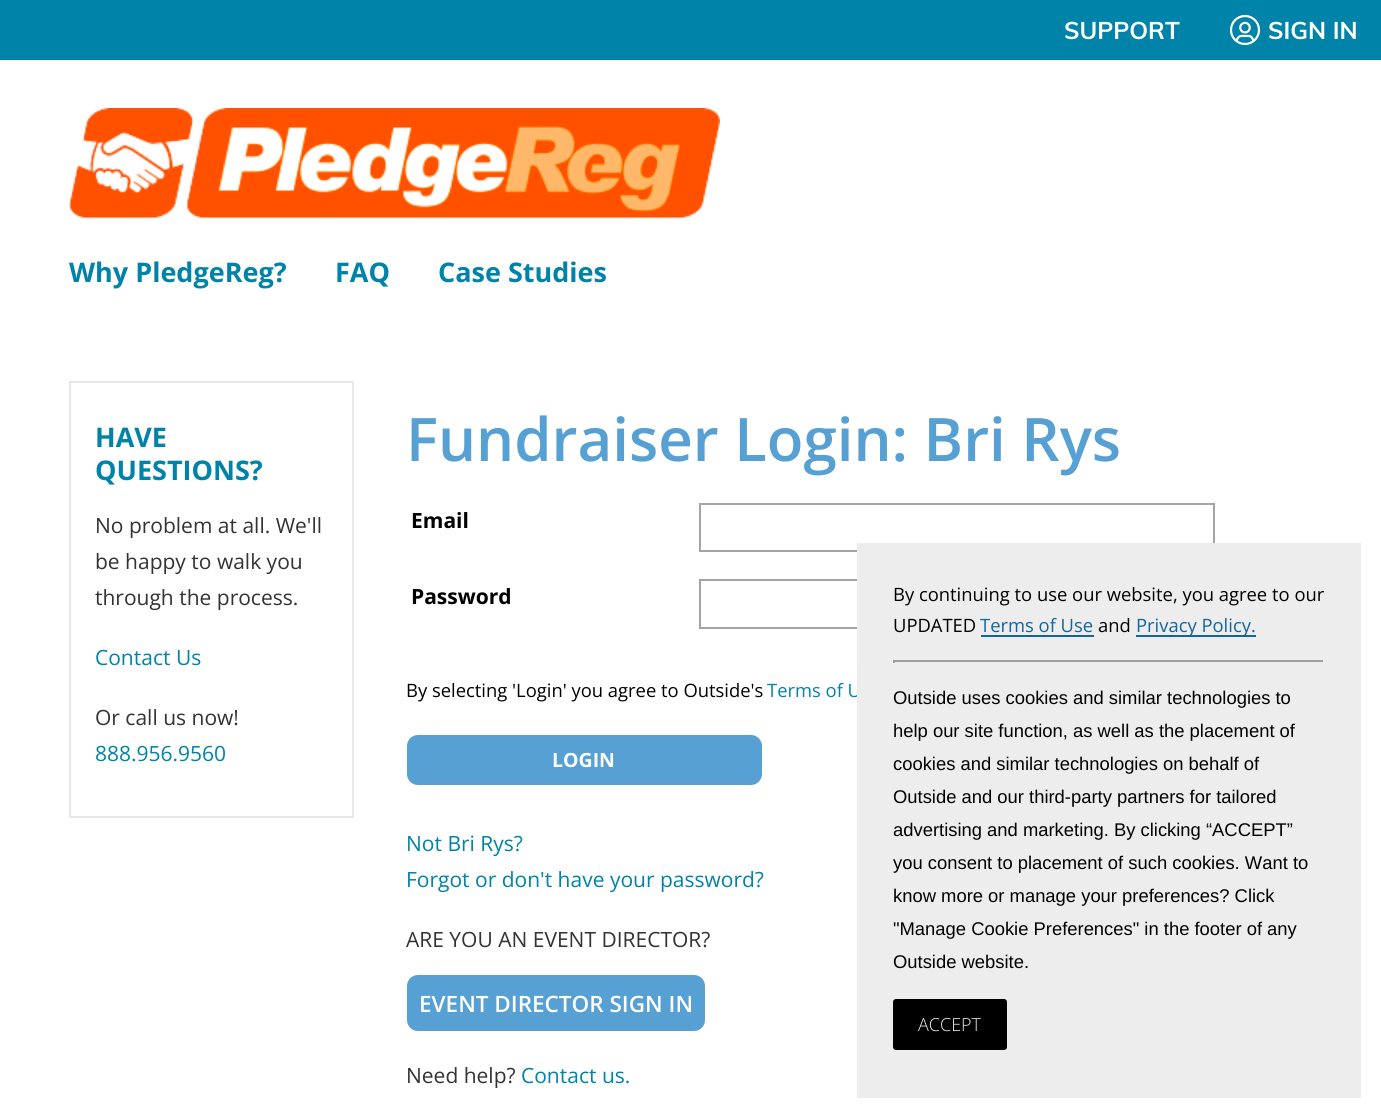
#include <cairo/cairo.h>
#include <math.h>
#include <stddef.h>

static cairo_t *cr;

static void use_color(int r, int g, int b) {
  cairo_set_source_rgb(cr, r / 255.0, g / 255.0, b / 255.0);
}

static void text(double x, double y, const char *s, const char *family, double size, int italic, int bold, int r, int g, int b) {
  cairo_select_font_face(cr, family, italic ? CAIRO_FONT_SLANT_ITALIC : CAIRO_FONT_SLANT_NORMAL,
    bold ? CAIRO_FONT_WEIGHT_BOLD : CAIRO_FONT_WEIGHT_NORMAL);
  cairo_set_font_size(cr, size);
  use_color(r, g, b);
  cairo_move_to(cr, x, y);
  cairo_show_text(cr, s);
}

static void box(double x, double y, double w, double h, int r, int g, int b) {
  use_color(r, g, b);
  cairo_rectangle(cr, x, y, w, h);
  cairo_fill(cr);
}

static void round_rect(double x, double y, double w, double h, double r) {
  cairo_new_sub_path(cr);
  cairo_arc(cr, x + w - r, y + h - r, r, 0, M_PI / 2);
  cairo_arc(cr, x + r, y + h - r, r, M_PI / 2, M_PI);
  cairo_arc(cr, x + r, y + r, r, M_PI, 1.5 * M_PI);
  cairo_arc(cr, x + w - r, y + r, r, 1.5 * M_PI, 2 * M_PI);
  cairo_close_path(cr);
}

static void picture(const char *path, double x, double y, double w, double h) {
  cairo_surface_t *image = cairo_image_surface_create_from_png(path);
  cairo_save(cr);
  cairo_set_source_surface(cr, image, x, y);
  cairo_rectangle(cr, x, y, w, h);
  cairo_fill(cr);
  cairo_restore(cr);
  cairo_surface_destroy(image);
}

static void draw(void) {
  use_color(255, 255, 255);
  cairo_paint(cr);
  box(0, 0, 1381, 60, 0, 131, 168);
  picture("img_01.png", 1229, 14, 32, 32);
  picture("img_02.png", 69, 108, 651, 111);
  cairo_rectangle(cr, 70, 382, 283, 435);
  use_color(230, 231, 232);
  cairo_stroke(cr);
  cairo_rectangle(cr, 700, 504, 514, 47);
  use_color(164, 164, 164);
  cairo_stroke(cr);
  cairo_rectangle(cr, 700, 580, 514, 48);
  cairo_stroke(cr);
  use_color(86, 160, 211);
  round_rect(408, 736, 353, 48, 10);
  cairo_fill_preserve(cr);
  cairo_stroke(cr);
  round_rect(408, 976, 296, 54, 10);
  cairo_fill_preserve(cr);
  cairo_stroke(cr);
  text(1064, 39, "SUPPORT", "Muli", 24, 0, 1, 255, 255, 255);
  text(1268, 39, "SIGN IN", "Muli", 24, 0, 1, 255, 255, 255);
  text(69, 282, "Why PledgeReg?", "Open Sans", 27, 0, 1, 0, 131, 168);
  text(335, 282, "FAQ", "Open Sans", 27, 0, 1, 0, 131, 168);
  text(438, 282, "Case Studies", "Open Sans", 27, 0, 1, 0, 131, 168);
  text(95, 447, "HAVE", "Open Sans", 27, 0, 1, 0, 131, 168);
  text(95, 480, "QUESTIONS?", "Open Sans", 27, 0, 1, 0, 131, 168);
  text(95, 533, "No problem at all. We'll", "Open Sans", 21, 0, 0, 51, 51, 51);
  text(95, 569, "be happy to walk you", "Open Sans", 21, 0, 0, 51, 51, 51);
  text(95, 605, "through the process.", "Open Sans", 21, 0, 0, 51, 51, 51);
  text(95, 665, "Contact Us", "Open Sans", 21, 0, 0, 0, 131, 168);
  text(95, 725, "Or call us now!", "Open Sans", 21, 0, 0, 51, 51, 51);
  text(95, 761, "888.956.9560", "Open Sans", 21, 0, 0, 0, 131, 168);
  text(406, 461, "Fundraiser Login: Bri Rys", "Open Sans SemiBold", 60, 0, 0, 86, 160, 211);
  text(411, 528, "Email", "Open Sans", 21, 0, 1, 0, 0, 0);
  text(411, 604, "Password", "Open Sans", 21, 0, 1, 0, 0, 0);
  text(406, 697, "By selecting 'Login' you agree to Outside's", "Open Sans", 18.4, 0, 0, 0, 0, 0);
  text(767, 697, "Terms of U", "Open Sans", 18.4, 0, 0, 0, 131, 168);
  text(552, 767, "LOGIN", "Open Sans", 19.5, 0, 1, 255, 255, 255);
  text(406, 851, "Not Bri Rys?", "Open Sans", 21, 0, 0, 0, 131, 168);
  text(406, 887, "Forgot or don't have your password?", "Open Sans", 21, 0, 0, 0, 131, 168);
  text(406, 947, "ARE YOU AN EVENT DIRECTOR?", "Open Sans", 21, 0, 0, 51, 51, 51);
  text(419, 1012, "EVENT DIRECTOR SIGN IN", "Open Sans SemiBold", 22.5, 0, 0, 255, 255, 255);
  text(406, 1083, "Need help?", "Open Sans", 21, 0, 0, 51, 51, 51);
  text(521, 1083, "Contact us.", "Open Sans", 21, 0, 0, 0, 131, 168);
  box(857, 543, 504, 555, 237, 237, 237);
  text(893, 601, "By continuing to use our website, you agree to our", "Open Sans", 18.4, 0, 0, 0, 0, 0);
  text(893, 632, "UPDATED", "Open Sans", 18.4, 0, 0, 0, 0, 0);
  text(980, 632, "Terms of Use", "Open Sans", 18.4, 0, 0, 18, 100, 163);
  box(981, 635, 113, 2, 18, 100, 163);
  text(1098, 632, "and", "Open Sans", 18.4, 0, 0, 0, 0, 0);
  box(1136, 635, 120, 2, 18, 100, 163);
  text(1136, 632, "Privacy Policy.", "Open Sans", 18.4, 0, 0, 18, 100, 163);
  box(893, 660, 432, 2, 159, 159, 159);
  box(1323, 660, 2, 3, 238, 238, 238);
  box(893, 660, 2, 3, 159, 159, 159);
  text(893, 704, "Outside uses cookies and similar technologies to", "Liberation Sans", 18.4, 0, 0, 0, 0, 0);
  text(893, 737, "help our site function, as well as the placement of", "Liberation Sans", 18.4, 0, 0, 0, 0, 0);
  text(893, 770, "cookies and similar technologies on behalf of", "Liberation Sans", 18.4, 0, 0, 0, 0, 0);
  text(893, 803, "Outside and our third-party partners for tailored", "Liberation Sans", 18.4, 0, 0, 0, 0, 0);
  text(893, 836, "advertising and marketing. By clicking “ACCEPT”", "Liberation Sans", 18.4, 0, 0, 0, 0, 0);
  text(893, 869, "you consent to placement of such cookies. Want to", "Liberation Sans", 18.4, 0, 0, 0, 0, 0);
  text(893, 902, "know more or manage your preferences? Click", "Liberation Sans", 18.4, 0, 0, 0, 0, 0);
  text(893, 935, "\"Manage Cookie Preferences\" in the footer of any", "Liberation Sans", 18.4, 0, 0, 0, 0, 0);
  text(893, 968, "Outside website.", "Liberation Sans", 18.4, 0, 0, 0, 0, 0);
  round_rect(894, 1000, 112, 49, 2);
  cairo_fill_preserve(cr);
  cairo_stroke(cr);
  text(918, 1031, "ACCEPT", "Open Sans Light", 18, 0, 0, 237, 237, 237);
}

int main(void) {
  cairo_surface_t *surface = cairo_image_surface_create(CAIRO_FORMAT_RGB24, 1381, 1119);
  cr = cairo_create(surface);
  cairo_font_options_t *options = cairo_font_options_create();
  cairo_font_options_set_hint_metrics(options, CAIRO_HINT_METRICS_OFF);
  cairo_font_options_set_hint_style(options, CAIRO_HINT_STYLE_NONE);
  cairo_set_font_options(cr, options);
  cairo_set_miter_limit(cr, 4);
  draw();
  cairo_surface_write_to_png(surface, "out.png");
  cairo_font_options_destroy(options);
  cairo_destroy(cr);
  cairo_surface_destroy(surface);
  return 0;
}
